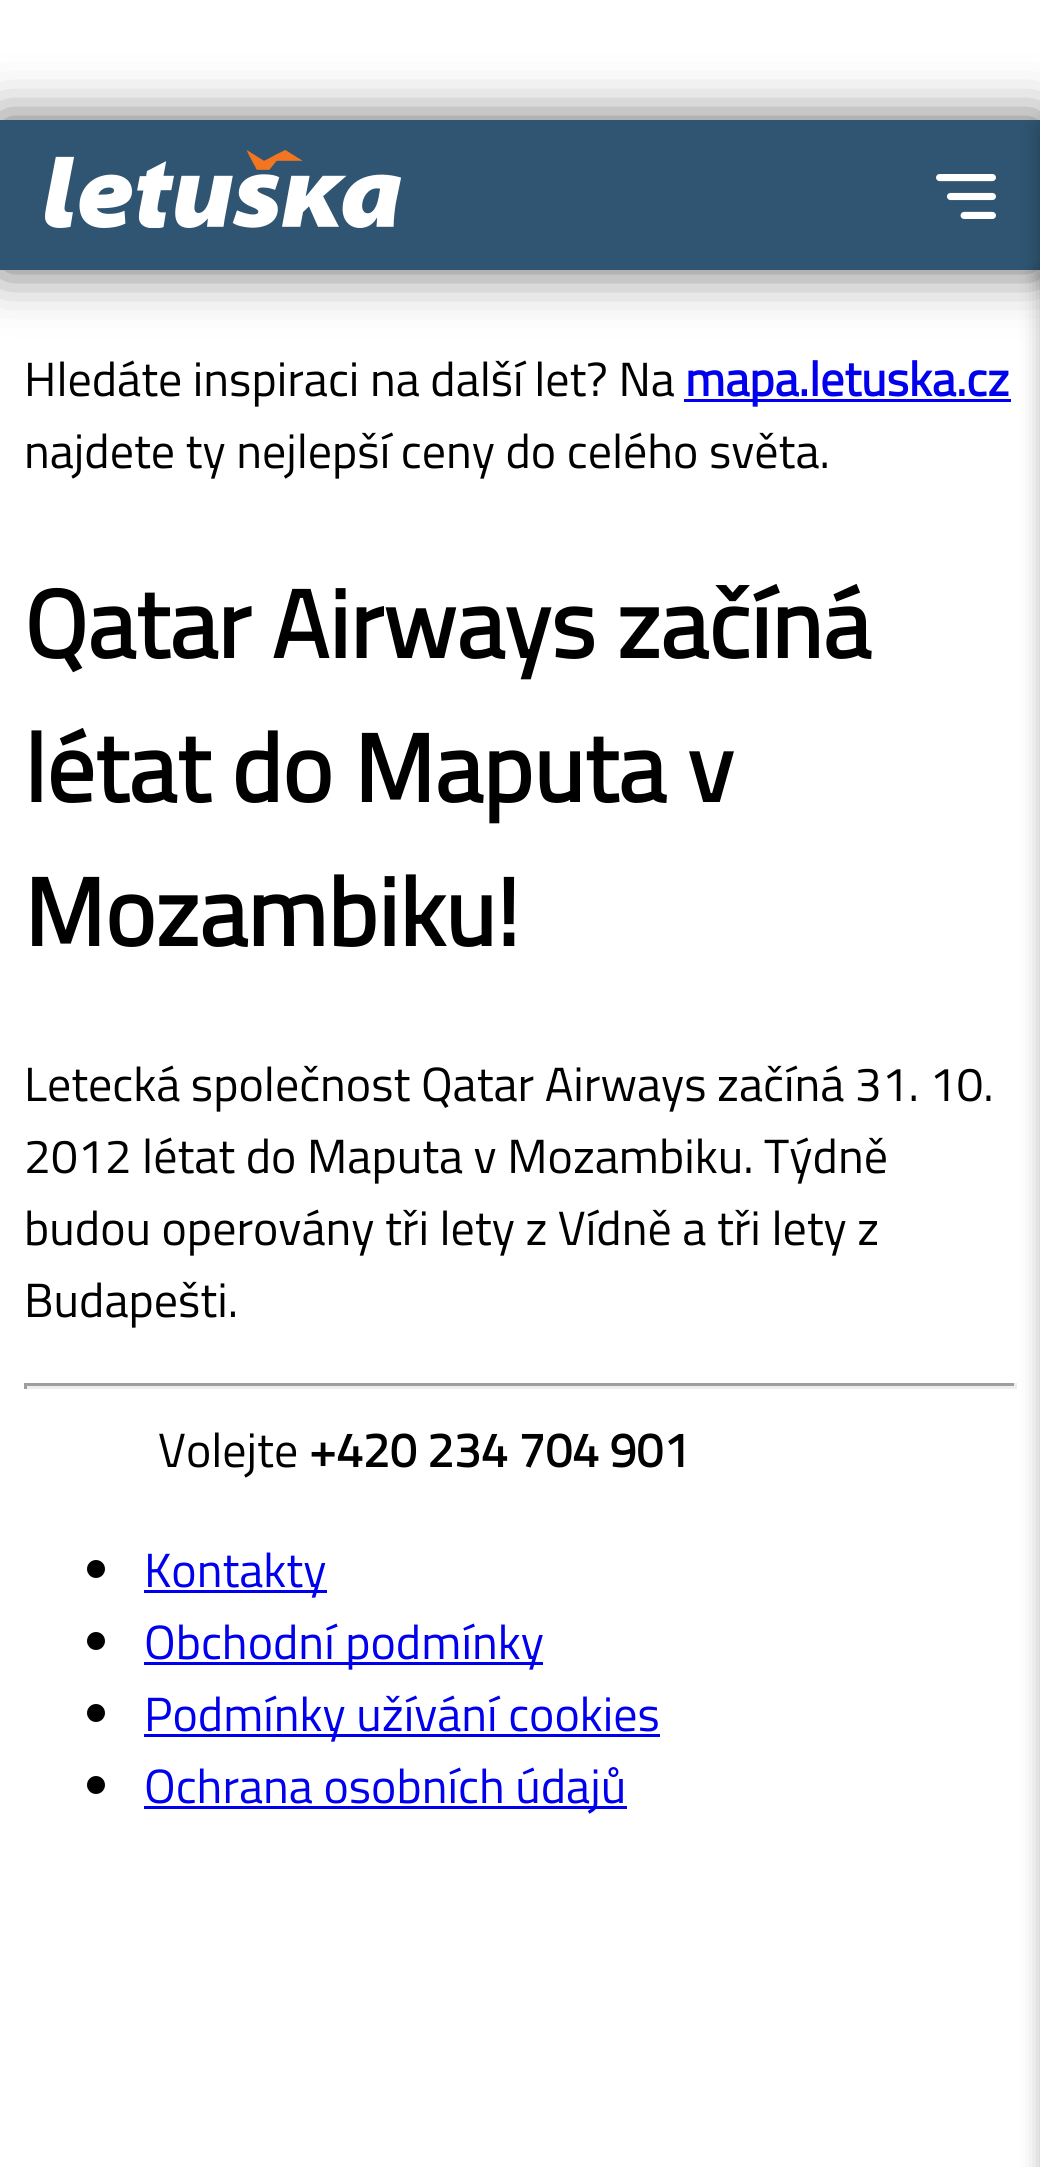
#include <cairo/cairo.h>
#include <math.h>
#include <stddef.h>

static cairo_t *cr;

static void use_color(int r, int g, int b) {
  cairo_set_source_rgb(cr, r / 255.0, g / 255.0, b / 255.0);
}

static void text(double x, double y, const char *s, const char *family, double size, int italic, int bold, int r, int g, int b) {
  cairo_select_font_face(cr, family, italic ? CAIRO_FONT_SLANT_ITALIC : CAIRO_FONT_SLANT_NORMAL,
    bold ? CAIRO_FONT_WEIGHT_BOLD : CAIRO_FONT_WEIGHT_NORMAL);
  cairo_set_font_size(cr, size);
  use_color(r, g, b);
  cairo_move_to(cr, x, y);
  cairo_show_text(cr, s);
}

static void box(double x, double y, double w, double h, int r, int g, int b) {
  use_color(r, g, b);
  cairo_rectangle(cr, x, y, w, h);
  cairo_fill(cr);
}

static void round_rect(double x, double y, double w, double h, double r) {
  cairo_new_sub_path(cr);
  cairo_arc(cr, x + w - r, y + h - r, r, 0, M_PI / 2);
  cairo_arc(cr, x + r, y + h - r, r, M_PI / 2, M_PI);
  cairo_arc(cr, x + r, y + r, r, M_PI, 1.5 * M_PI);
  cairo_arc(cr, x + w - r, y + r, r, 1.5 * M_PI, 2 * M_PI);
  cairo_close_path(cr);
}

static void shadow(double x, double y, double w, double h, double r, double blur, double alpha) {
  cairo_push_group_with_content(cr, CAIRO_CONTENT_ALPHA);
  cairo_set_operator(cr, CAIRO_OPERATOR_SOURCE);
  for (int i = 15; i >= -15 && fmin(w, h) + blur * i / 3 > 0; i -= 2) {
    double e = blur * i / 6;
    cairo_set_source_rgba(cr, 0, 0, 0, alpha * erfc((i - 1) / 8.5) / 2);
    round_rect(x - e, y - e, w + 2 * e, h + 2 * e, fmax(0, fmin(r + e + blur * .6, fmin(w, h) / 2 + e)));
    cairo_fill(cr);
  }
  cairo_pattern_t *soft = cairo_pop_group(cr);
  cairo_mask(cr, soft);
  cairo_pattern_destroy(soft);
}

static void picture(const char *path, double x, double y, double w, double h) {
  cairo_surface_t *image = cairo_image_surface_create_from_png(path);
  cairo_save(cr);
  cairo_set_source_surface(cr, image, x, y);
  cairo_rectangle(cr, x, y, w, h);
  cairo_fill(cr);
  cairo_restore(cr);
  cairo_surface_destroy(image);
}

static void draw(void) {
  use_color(255, 255, 255);
  cairo_paint(cr);
  use_color(0, 0, 0);
  shadow(0, 120, 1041, 150, 0, 27, 0.6);
  box(0, 120, 1040, 150, 47, 85, 114);
  picture("img_01.png", 45, 150, 357, 78);
  use_color(0, 0, 0);
  shadow(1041, 126, 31, 150, 0, 10.5, 0.3);
  picture("img_02.png", 936, 174, 60, 45);
  box(684, 399, 327, 3, 0, 0, 238);
  box(24, 1383, 993, 3, 159, 159, 159);
  box(1014, 1383, 3, 6, 238, 238, 238);
  box(24, 1386, 993, 3, 238, 238, 238);
  use_color(0, 0, 0);
  shadow(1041, 276, 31, 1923, 0, 10.5, 0.3);
  box(24, 1383, 3, 6, 159, 159, 159);
  use_color(0, 0, 0);
  cairo_arc(cr, 96, 1569, 9, 0, 2 * M_PI);
  cairo_fill(cr);
  box(144, 1590, 183, 3, 0, 0, 238);
  use_color(0, 0, 0);
  cairo_arc(cr, 96, 1641, 9, 0, 2 * M_PI);
  cairo_fill(cr);
  box(144, 1662, 399, 3, 0, 0, 238);
  use_color(0, 0, 0);
  cairo_arc(cr, 96, 1713, 9, 0, 2 * M_PI);
  cairo_fill(cr);
  box(144, 1734, 516, 3, 0, 0, 238);
  use_color(0, 0, 0);
  cairo_arc(cr, 96, 1785, 9, 0, 2 * M_PI);
  cairo_fill(cr);
  box(144, 1806, 483, 3, 0, 0, 238);
  text(24, 396, "Hledáte inspiraci na další let? Na", "Titillium Web", 48, 0, 0, 0, 0, 0);
  text(685, 396, "mapa.letuska.cz", "Titillium Web", 48, 0, 1, 0, 0, 238);
  text(24, 468, "najdete ty nejlepší ceny do celého světa.", "Titillium Web", 48, 0, 0, 0, 0, 0);
  text(24, 658, "Qatar Airways začíná", "Titillium Web", 96, 0, 1, 0, 0, 0);
  text(24, 802, "létat do Maputa v", "Titillium Web", 96, 0, 1, 0, 0, 0);
  text(24, 946, "Mozambiku!", "Titillium Web", 96, 0, 1, 0, 0, 0);
  text(24, 1101, "Letecká společnost Qatar Airways začíná 31. 10.", "Titillium Web", 48, 0, 0, 0, 0, 0);
  text(24, 1173, "2012 létat do Maputa v Mozambiku. Týdně", "Titillium Web", 48, 0, 0, 0, 0, 0);
  text(24, 1245, "budou operovány tři lety z Vídně a tři lety z", "Titillium Web", 48, 0, 0, 0, 0, 0);
  text(24, 1317, "Budapešti.", "Titillium Web", 48, 0, 0, 0, 0, 0);
  text(158, 1467, "Volejte", "Titillium Web", 48, 0, 0, 0, 0, 0);
  text(309, 1467, "+420 234 704 901", "Titillium Web", 48, 0, 1, 0, 0, 0);
  text(144, 1587, "Kontakty", "Titillium Web", 48, 0, 0, 0, 0, 238);
  text(144, 1659, "Obchodní podmínky", "Titillium Web", 48, 0, 0, 0, 0, 238);
  text(144, 1731, "Podmínky užívání cookies", "Titillium Web", 48, 0, 0, 0, 0, 238);
  text(144, 1803, "Ochrana osobních údajů", "Titillium Web", 48, 0, 0, 0, 0, 238);
}

int main(void) {
  cairo_surface_t *surface = cairo_image_surface_create(CAIRO_FORMAT_RGB24, 1040, 2167);
  cr = cairo_create(surface);
  cairo_font_options_t *options = cairo_font_options_create();
  cairo_font_options_set_hint_metrics(options, CAIRO_HINT_METRICS_OFF);
  cairo_font_options_set_hint_style(options, CAIRO_HINT_STYLE_NONE);
  cairo_set_font_options(cr, options);
  cairo_set_miter_limit(cr, 4);
  draw();
  cairo_surface_write_to_png(surface, "out.png");
  cairo_font_options_destroy(options);
  cairo_destroy(cr);
  cairo_surface_destroy(surface);
  return 0;
}
